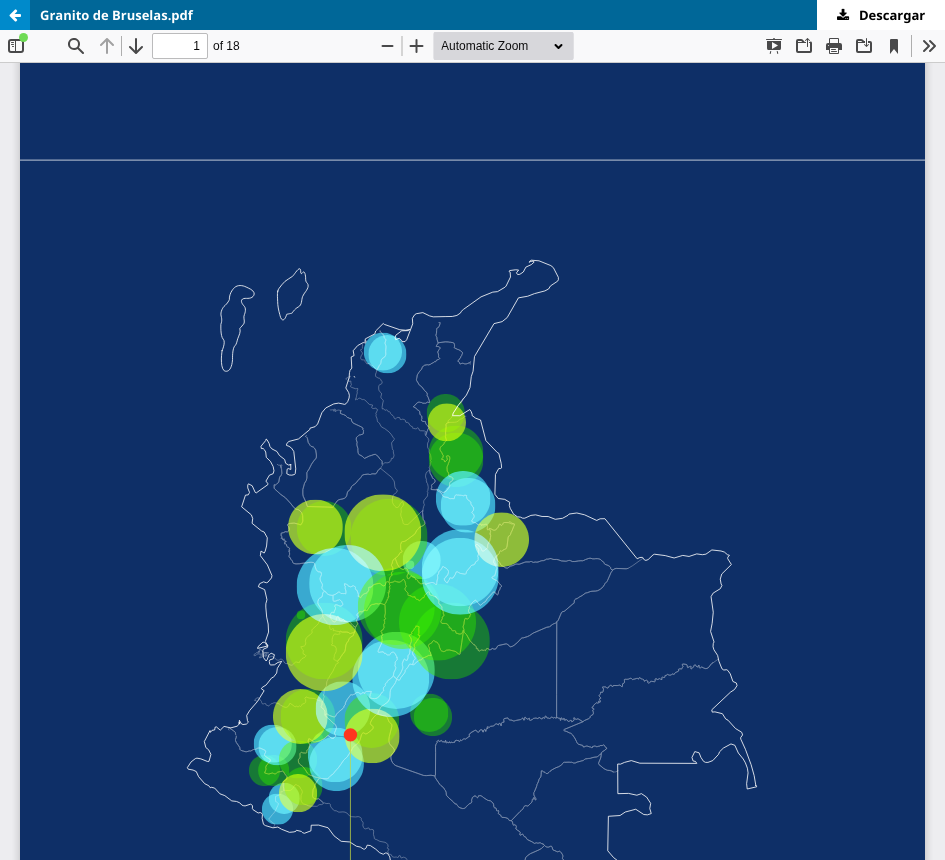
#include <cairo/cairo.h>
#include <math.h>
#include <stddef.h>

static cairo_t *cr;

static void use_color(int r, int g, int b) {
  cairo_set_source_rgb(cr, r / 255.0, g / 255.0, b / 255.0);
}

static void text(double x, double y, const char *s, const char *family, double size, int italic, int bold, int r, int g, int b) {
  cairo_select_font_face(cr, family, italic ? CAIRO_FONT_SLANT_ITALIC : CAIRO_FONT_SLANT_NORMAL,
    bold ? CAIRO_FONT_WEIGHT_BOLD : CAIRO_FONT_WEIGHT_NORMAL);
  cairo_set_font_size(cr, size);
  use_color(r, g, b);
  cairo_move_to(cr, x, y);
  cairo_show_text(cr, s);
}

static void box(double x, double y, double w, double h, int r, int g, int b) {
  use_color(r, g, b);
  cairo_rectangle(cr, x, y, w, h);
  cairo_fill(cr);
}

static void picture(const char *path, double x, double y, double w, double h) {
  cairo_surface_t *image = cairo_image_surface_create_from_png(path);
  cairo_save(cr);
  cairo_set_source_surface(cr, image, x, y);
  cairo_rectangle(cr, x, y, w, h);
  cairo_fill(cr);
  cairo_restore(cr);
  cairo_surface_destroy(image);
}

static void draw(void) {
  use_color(255, 255, 255);
  cairo_paint(cr);
  box(30, 0, 787, 30, 0, 103, 152);
  box(0, 0, 30, 30, 0, 138, 203);
  picture("img_01.png", 9, 9, 12, 13);
  picture("img_02.png", 837, 8, 13, 12);
  picture("img_03.png", 0, 30, 945, 830);
  text(40, 20, "Granito de Bruselas.pdf", "Noto Sans", 13, 0, 1, 255, 255, 255);
  text(859, 20, "Descargar", "Noto Sans", 13, 0, 1, 0, 0, 0);
}

int main(void) {
  cairo_surface_t *surface = cairo_image_surface_create(CAIRO_FORMAT_RGB24, 945, 860);
  cr = cairo_create(surface);
  cairo_font_options_t *options = cairo_font_options_create();
  cairo_font_options_set_hint_metrics(options, CAIRO_HINT_METRICS_OFF);
  cairo_font_options_set_hint_style(options, CAIRO_HINT_STYLE_NONE);
  cairo_set_font_options(cr, options);
  cairo_set_miter_limit(cr, 4);
  draw();
  cairo_surface_write_to_png(surface, "out.png");
  cairo_font_options_destroy(options);
  cairo_destroy(cr);
  cairo_surface_destroy(surface);
  return 0;
}
